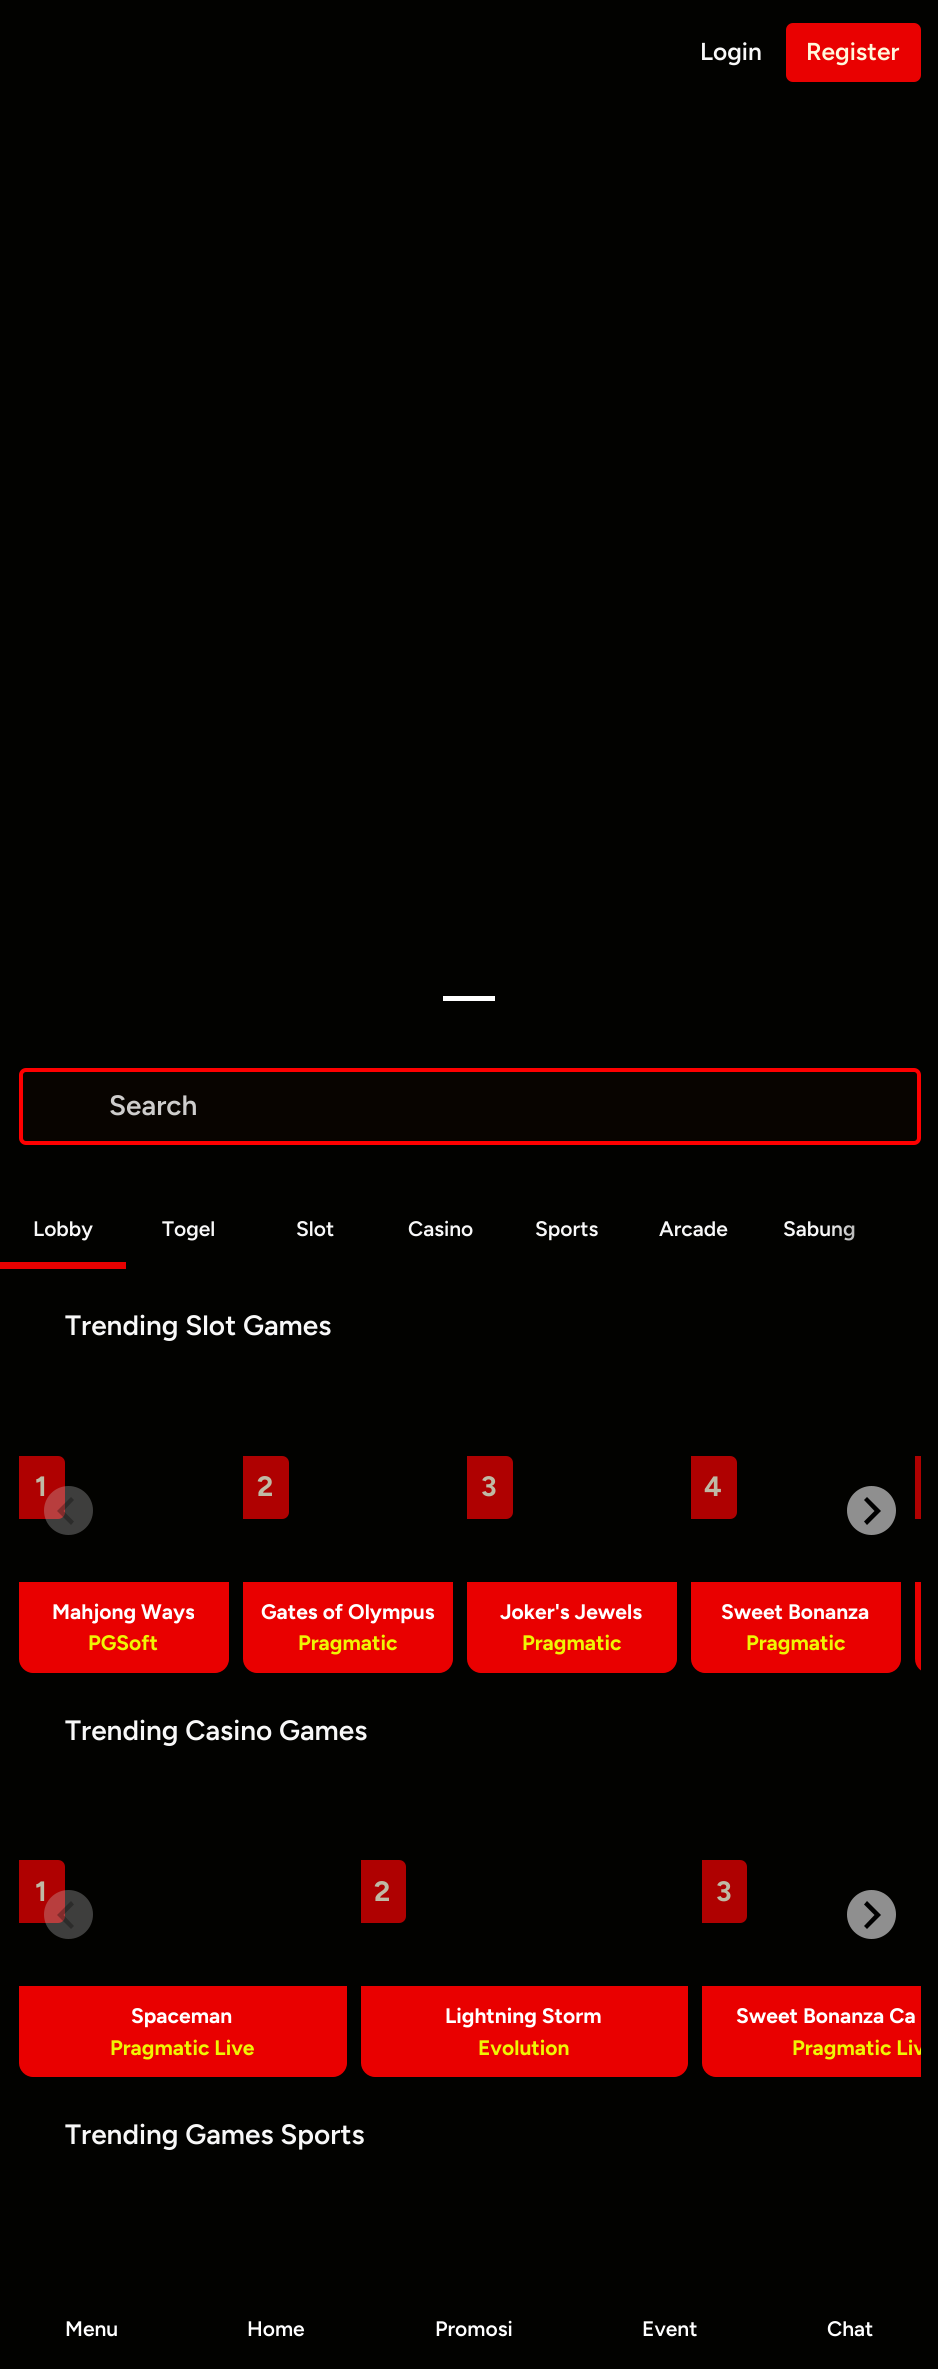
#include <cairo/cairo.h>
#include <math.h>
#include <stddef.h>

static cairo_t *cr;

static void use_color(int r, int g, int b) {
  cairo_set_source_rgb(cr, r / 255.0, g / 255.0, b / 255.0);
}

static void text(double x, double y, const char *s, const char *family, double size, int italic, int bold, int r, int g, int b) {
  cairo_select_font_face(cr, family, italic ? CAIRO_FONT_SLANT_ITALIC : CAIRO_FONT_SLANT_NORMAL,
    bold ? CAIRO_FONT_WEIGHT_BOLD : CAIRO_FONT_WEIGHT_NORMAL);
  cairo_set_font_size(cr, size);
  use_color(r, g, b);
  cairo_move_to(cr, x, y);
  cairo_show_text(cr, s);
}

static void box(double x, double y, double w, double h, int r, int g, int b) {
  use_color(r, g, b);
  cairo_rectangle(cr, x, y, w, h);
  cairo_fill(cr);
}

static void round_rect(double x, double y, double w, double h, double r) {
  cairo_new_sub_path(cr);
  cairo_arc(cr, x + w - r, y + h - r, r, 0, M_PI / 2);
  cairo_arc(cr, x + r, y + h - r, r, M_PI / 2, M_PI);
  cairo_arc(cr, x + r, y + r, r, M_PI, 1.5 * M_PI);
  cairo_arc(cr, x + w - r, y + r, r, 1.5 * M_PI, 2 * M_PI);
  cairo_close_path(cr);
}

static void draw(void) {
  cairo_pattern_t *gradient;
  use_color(2, 2, 0);
  cairo_paint(cr);
  use_color(233, 1, 1);
  round_rect(787, 24, 133, 57, 6);
  cairo_fill_preserve(cr);
  cairo_stroke(cr);
  box(443, 996, 52, 5, 255, 255, 255);
  use_color(8, 4, 0);
  round_rect(21, 1070, 898, 73, 5);
  cairo_fill_preserve(cr);
  use_color(255, 0, 0);
  cairo_set_line_width(cr, 4);
  cairo_stroke(cr);
  box(0, 1262, 126, 7, 233, 1, 1);
  use_color(175, 1, 1);
  cairo_new_path(cr);
  cairo_move_to(cr, 19, 1456);
  cairo_line_to(cr, 58, 1456);
  cairo_curve_to(cr, 62, 1456, 65, 1459, 65, 1463);
  cairo_line_to(cr, 65, 1512);
  cairo_curve_to(cr, 65, 1516, 62, 1519, 58, 1519);
  cairo_line_to(cr, 19, 1519);
  cairo_close_path(cr);
  cairo_fill(cr);
  use_color(233, 0, 0);
  cairo_new_path(cr);
  cairo_move_to(cr, 19, 1582);
  cairo_line_to(cr, 229, 1582);
  cairo_line_to(cr, 229, 1659);
  cairo_curve_to(cr, 229, 1666.5, 222.5, 1673, 215, 1673);
  cairo_line_to(cr, 33, 1673);
  cairo_curve_to(cr, 25.5, 1673, 19, 1666.5, 19, 1659);
  cairo_close_path(cr);
  cairo_fill(cr);
  use_color(175, 1, 1);
  cairo_new_path(cr);
  cairo_move_to(cr, 243, 1456);
  cairo_line_to(cr, 282, 1456);
  cairo_curve_to(cr, 286, 1456, 289, 1459, 289, 1463);
  cairo_line_to(cr, 289, 1512);
  cairo_curve_to(cr, 289, 1516, 286, 1519, 282, 1519);
  cairo_line_to(cr, 243, 1519);
  cairo_close_path(cr);
  cairo_fill(cr);
  use_color(233, 0, 0);
  cairo_new_path(cr);
  cairo_move_to(cr, 243, 1582);
  cairo_line_to(cr, 453, 1582);
  cairo_line_to(cr, 453, 1659);
  cairo_curve_to(cr, 453, 1666.5, 446.5, 1673, 439, 1673);
  cairo_line_to(cr, 257, 1673);
  cairo_curve_to(cr, 249.5, 1673, 243, 1666.5, 243, 1659);
  cairo_close_path(cr);
  cairo_fill(cr);
  use_color(175, 1, 1);
  cairo_new_path(cr);
  cairo_move_to(cr, 467, 1456);
  cairo_line_to(cr, 506, 1456);
  cairo_curve_to(cr, 510, 1456, 513, 1459, 513, 1463);
  cairo_line_to(cr, 513, 1512);
  cairo_curve_to(cr, 513, 1516, 510, 1519, 506, 1519);
  cairo_line_to(cr, 467, 1519);
  cairo_close_path(cr);
  cairo_fill(cr);
  use_color(233, 0, 0);
  cairo_new_path(cr);
  cairo_move_to(cr, 467, 1582);
  cairo_line_to(cr, 677, 1582);
  cairo_line_to(cr, 677, 1659);
  cairo_curve_to(cr, 677, 1666.5, 670.5, 1673, 663, 1673);
  cairo_line_to(cr, 481, 1673);
  cairo_curve_to(cr, 473.5, 1673, 467, 1666.5, 467, 1659);
  cairo_close_path(cr);
  cairo_fill(cr);
  use_color(175, 1, 1);
  cairo_new_path(cr);
  cairo_move_to(cr, 691, 1456);
  cairo_line_to(cr, 730, 1456);
  cairo_curve_to(cr, 734, 1456, 737, 1459, 737, 1463);
  cairo_line_to(cr, 737, 1512);
  cairo_curve_to(cr, 737, 1516, 734, 1519, 730, 1519);
  cairo_line_to(cr, 691, 1519);
  cairo_close_path(cr);
  cairo_fill(cr);
  use_color(233, 0, 0);
  cairo_new_path(cr);
  cairo_move_to(cr, 691, 1582);
  cairo_line_to(cr, 901, 1582);
  cairo_line_to(cr, 901, 1659);
  cairo_curve_to(cr, 901, 1666.5, 894.5, 1673, 887, 1673);
  cairo_line_to(cr, 705, 1673);
  cairo_curve_to(cr, 697.5, 1673, 691, 1666.5, 691, 1659);
  cairo_close_path(cr);
  cairo_fill(cr);
  box(915, 1456, 6, 63, 175, 1, 1);
  cairo_save(cr);
  round_rect(915, 1372, 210, 301, 14);
  cairo_clip(cr);
  box(915, 1582, 6, 91, 233, 0, 0);
  cairo_restore(cr);
  use_color(143, 143, 143);
  cairo_arc(cr, 871.5, 1510.5, 24.5, 0, 2 * M_PI);
  cairo_fill(cr);
  use_color(0, 0, 0);
  cairo_new_path(cr);
  cairo_move_to(cr, 867, 1497);
  cairo_line_to(cr, 864, 1500);
  cairo_line_to(cr, 874.5, 1511);
  cairo_line_to(cr, 864, 1521.5);
  cairo_line_to(cr, 867, 1525);
  cairo_line_to(cr, 881, 1511);
  cairo_close_path(cr);
  cairo_fill(cr);
  use_color(175, 1, 1);
  cairo_new_path(cr);
  cairo_move_to(cr, 19, 1860);
  cairo_line_to(cr, 58, 1860);
  cairo_curve_to(cr, 62, 1860, 65, 1863, 65, 1867);
  cairo_line_to(cr, 65, 1916);
  cairo_curve_to(cr, 65, 1920, 62, 1923, 58, 1923);
  cairo_line_to(cr, 19, 1923);
  cairo_close_path(cr);
  cairo_fill(cr);
  use_color(233, 0, 0);
  cairo_new_path(cr);
  cairo_move_to(cr, 19, 1986);
  cairo_line_to(cr, 347, 1986);
  cairo_line_to(cr, 347, 2063);
  cairo_curve_to(cr, 347, 2070.5, 340.5, 2077, 333, 2077);
  cairo_line_to(cr, 33, 2077);
  cairo_curve_to(cr, 25.5, 2077, 19, 2070.5, 19, 2063);
  cairo_close_path(cr);
  cairo_fill(cr);
  use_color(175, 1, 1);
  cairo_new_path(cr);
  cairo_move_to(cr, 361, 1860);
  cairo_line_to(cr, 399, 1860);
  cairo_curve_to(cr, 403, 1860, 406, 1863, 406, 1867);
  cairo_line_to(cr, 406, 1916);
  cairo_curve_to(cr, 406, 1920, 403, 1923, 399, 1923);
  cairo_line_to(cr, 361, 1923);
  cairo_close_path(cr);
  cairo_fill(cr);
  use_color(233, 0, 0);
  cairo_new_path(cr);
  cairo_move_to(cr, 361, 1986);
  cairo_line_to(cr, 688, 1986);
  cairo_line_to(cr, 688, 2063);
  cairo_curve_to(cr, 688, 2070.5, 681.5, 2077, 674, 2077);
  cairo_line_to(cr, 375, 2077);
  cairo_curve_to(cr, 367.5, 2077, 361, 2070.5, 361, 2063);
  cairo_close_path(cr);
  cairo_fill(cr);
  use_color(175, 1, 1);
  cairo_new_path(cr);
  cairo_move_to(cr, 702, 1860);
  cairo_line_to(cr, 740, 1860);
  cairo_curve_to(cr, 744, 1860, 747, 1863, 747, 1867);
  cairo_line_to(cr, 747, 1916);
  cairo_curve_to(cr, 747, 1920, 744, 1923, 740, 1923);
  cairo_line_to(cr, 702, 1923);
  cairo_close_path(cr);
  cairo_fill(cr);
  use_color(233, 0, 0);
  cairo_new_path(cr);
  cairo_move_to(cr, 702, 1986);
  cairo_line_to(cr, 921, 1986);
  cairo_line_to(cr, 921, 2077);
  cairo_line_to(cr, 716, 2077);
  cairo_curve_to(cr, 708.5, 2077, 702, 2070.5, 702, 2063);
  cairo_close_path(cr);
  cairo_fill(cr);
  use_color(143, 143, 143);
  cairo_arc(cr, 871.5, 1914.5, 24.5, 0, 2 * M_PI);
  cairo_fill(cr);
  use_color(0, 0, 0);
  cairo_new_path(cr);
  cairo_move_to(cr, 867, 1901);
  cairo_line_to(cr, 864, 1904.5);
  cairo_line_to(cr, 874.5, 1915);
  cairo_line_to(cr, 864, 1926);
  cairo_line_to(cr, 867, 1929);
  cairo_line_to(cr, 881, 1915);
  cairo_close_path(cr);
  cairo_fill(cr);
  text(700, 60, "Login", "Figtree SemiBold", 24.5, 0, 0, 248, 248, 248);
  text(806, 60, "Register", "Figtree SemiBold", 24.5, 0, 0, 255, 248, 220);
  text(109, 1115, "Search", "Figtree SemiBold", 28, 0, 0, 206, 205, 204);
  text(33, 1236, "Lobby", "Figtree SemiBold", 21, 0, 0, 248, 248, 248);
  text(162, 1236, "Togel", "Figtree SemiBold", 21, 0, 0, 248, 248, 248);
  text(296, 1236, "Slot", "Figtree SemiBold", 21, 0, 0, 248, 248, 248);
  text(408, 1236, "Casino", "Figtree SemiBold", 21, 0, 0, 248, 248, 248);
  text(535, 1236, "Sports", "Figtree SemiBold", 21, 0, 0, 248, 248, 248);
  text(659, 1236, "Arcade", "Figtree SemiBold", 21, 0, 0, 248, 248, 248);
  text(783, 1236, "Sabung", "Figtree SemiBold", 21, 0, 0, 248, 248, 248);
  gradient = cairo_pattern_create_linear(938, 1210, 826, 1210);
  cairo_pattern_add_color_stop_rgba(gradient, 0, 0.008, 0.008, 0, 1);
  cairo_pattern_add_color_stop_rgba(gradient, 1, 0.008, 0.008, 0, 0);
  cairo_set_source(cr, gradient);
  cairo_pattern_destroy(gradient);
  cairo_rectangle(cr, 828, 1225, 26, 16);
  cairo_fill(cr);
  text(65, 1335, "Trending Slot Games", "Figtree SemiBold", 28, 0, 0, 248, 248, 248);
  text(35, 1496, "1", "Figtree", 28, 0, 1, 191, 186, 165);
  cairo_save(cr);
  cairo_rectangle(cr, 53, 1596, 141, 32);
  cairo_clip(cr);
  text(52, 1619, "Mahjong Ways", "Figtree", 21, 0, 1, 255, 255, 255);
  cairo_restore(cr);
  text(88, 1650, "PGSoft", "Figtree", 21, 0, 1, 239, 245, 4);
  text(257, 1496, "2", "Figtree", 28, 0, 1, 191, 186, 165);
  text(261, 1619, "Gates of Olympus", "Figtree", 21, 0, 1, 255, 255, 255);
  text(298, 1650, "Pragmatic", "Figtree", 21, 0, 1, 239, 245, 4);
  text(481, 1496, "3", "Figtree", 28, 0, 1, 191, 186, 165);
  text(500, 1619, "Joker's Jewels", "Figtree", 21, 0, 1, 255, 255, 255);
  text(522, 1650, "Pragmatic", "Figtree", 21, 0, 1, 239, 245, 4);
  text(704, 1496, "4", "Figtree", 28, 0, 1, 191, 186, 165);
  text(721, 1619, "Sweet Bonanza", "Figtree", 21, 0, 1, 255, 255, 255);
  text(746, 1650, "Pragmatic", "Figtree", 21, 0, 1, 239, 245, 4);
  cairo_set_source_rgba(cr, 0.8, 0.8, 0.8, 0.3);
  cairo_new_path(cr);
  cairo_arc(cr, 68.5, 1510.5, 24.5, 0, 2 * M_PI);
  cairo_fill(cr);
  cairo_set_source_rgba(cr, 0, 0, 0, 0.3);
  cairo_new_path(cr);
  cairo_move_to(cr, 71, 1497);
  cairo_line_to(cr, 74, 1500);
  cairo_line_to(cr, 63.5, 1511);
  cairo_line_to(cr, 74, 1521.5);
  cairo_line_to(cr, 71, 1525);
  cairo_line_to(cr, 57, 1511);
  cairo_close_path(cr);
  cairo_fill(cr);
  text(65, 1740, "Trending Casino Games", "Figtree SemiBold", 28, 0, 0, 248, 248, 248);
  text(35, 1901, "1", "Figtree", 28, 0, 1, 191, 186, 165);
  text(131, 2023, "Spaceman", "Figtree", 21, 0, 1, 255, 255, 255);
  text(110, 2055, "Pragmatic Live", "Figtree", 21, 0, 1, 239, 245, 4);
  text(374, 1901, "2", "Figtree", 28, 0, 1, 191, 186, 165);
  text(445, 2023, "Lightning Storm", "Figtree", 21, 0, 1, 255, 255, 255);
  text(478, 2055, "Evolution", "Figtree", 21, 0, 1, 239, 245, 4);
  text(716, 1901, "3", "Figtree", 28, 0, 1, 191, 186, 165);
  text(736, 2023, "Sweet Bonanza Ca", "Figtree", 21, 0, 1, 255, 255, 255);
  cairo_save(cr);
  cairo_rectangle(cr, 702, 1986, 219, 91);
  cairo_clip(cr);
  text(792, 2055, "Pragmatic Liv", "Figtree", 21, 0, 1, 239, 245, 4);
  cairo_restore(cr);
  cairo_set_source_rgba(cr, 0.8, 0.8, 0.8, 0.3);
  cairo_new_path(cr);
  cairo_arc(cr, 68.5, 1914.5, 24.5, 0, 2 * M_PI);
  cairo_fill(cr);
  cairo_set_source_rgba(cr, 0, 0, 0, 0.3);
  cairo_new_path(cr);
  cairo_move_to(cr, 71, 1901);
  cairo_line_to(cr, 74, 1904.5);
  cairo_line_to(cr, 63.5, 1915);
  cairo_line_to(cr, 74, 1926);
  cairo_line_to(cr, 71, 1929);
  cairo_line_to(cr, 57, 1915);
  cairo_close_path(cr);
  cairo_fill(cr);
  text(65, 2144, "Trending Games Sports", "Figtree SemiBold", 28, 0, 0, 248, 248, 248);
  text(65, 2336, "Menu", "Figtree SemiBold", 21, 0, 0, 255, 255, 255);
  text(247, 2336, "Home", "Figtree SemiBold", 21, 0, 0, 255, 255, 255);
  text(435, 2336, "Promosi", "Figtree SemiBold", 21, 0, 0, 255, 255, 255);
  text(642, 2336, "Event", "Figtree SemiBold", 21, 0, 0, 255, 255, 255);
  text(827, 2336, "Chat", "Figtree SemiBold", 21, 0, 0, 255, 255, 255);
}

int main(void) {
  cairo_surface_t *surface = cairo_image_surface_create(CAIRO_FORMAT_RGB24, 938, 2369);
  cr = cairo_create(surface);
  cairo_font_options_t *options = cairo_font_options_create();
  cairo_font_options_set_hint_metrics(options, CAIRO_HINT_METRICS_OFF);
  cairo_font_options_set_hint_style(options, CAIRO_HINT_STYLE_NONE);
  cairo_set_font_options(cr, options);
  cairo_set_miter_limit(cr, 4);
  draw();
  cairo_surface_write_to_png(surface, "out.png");
  cairo_font_options_destroy(options);
  cairo_destroy(cr);
  cairo_surface_destroy(surface);
  return 0;
}
